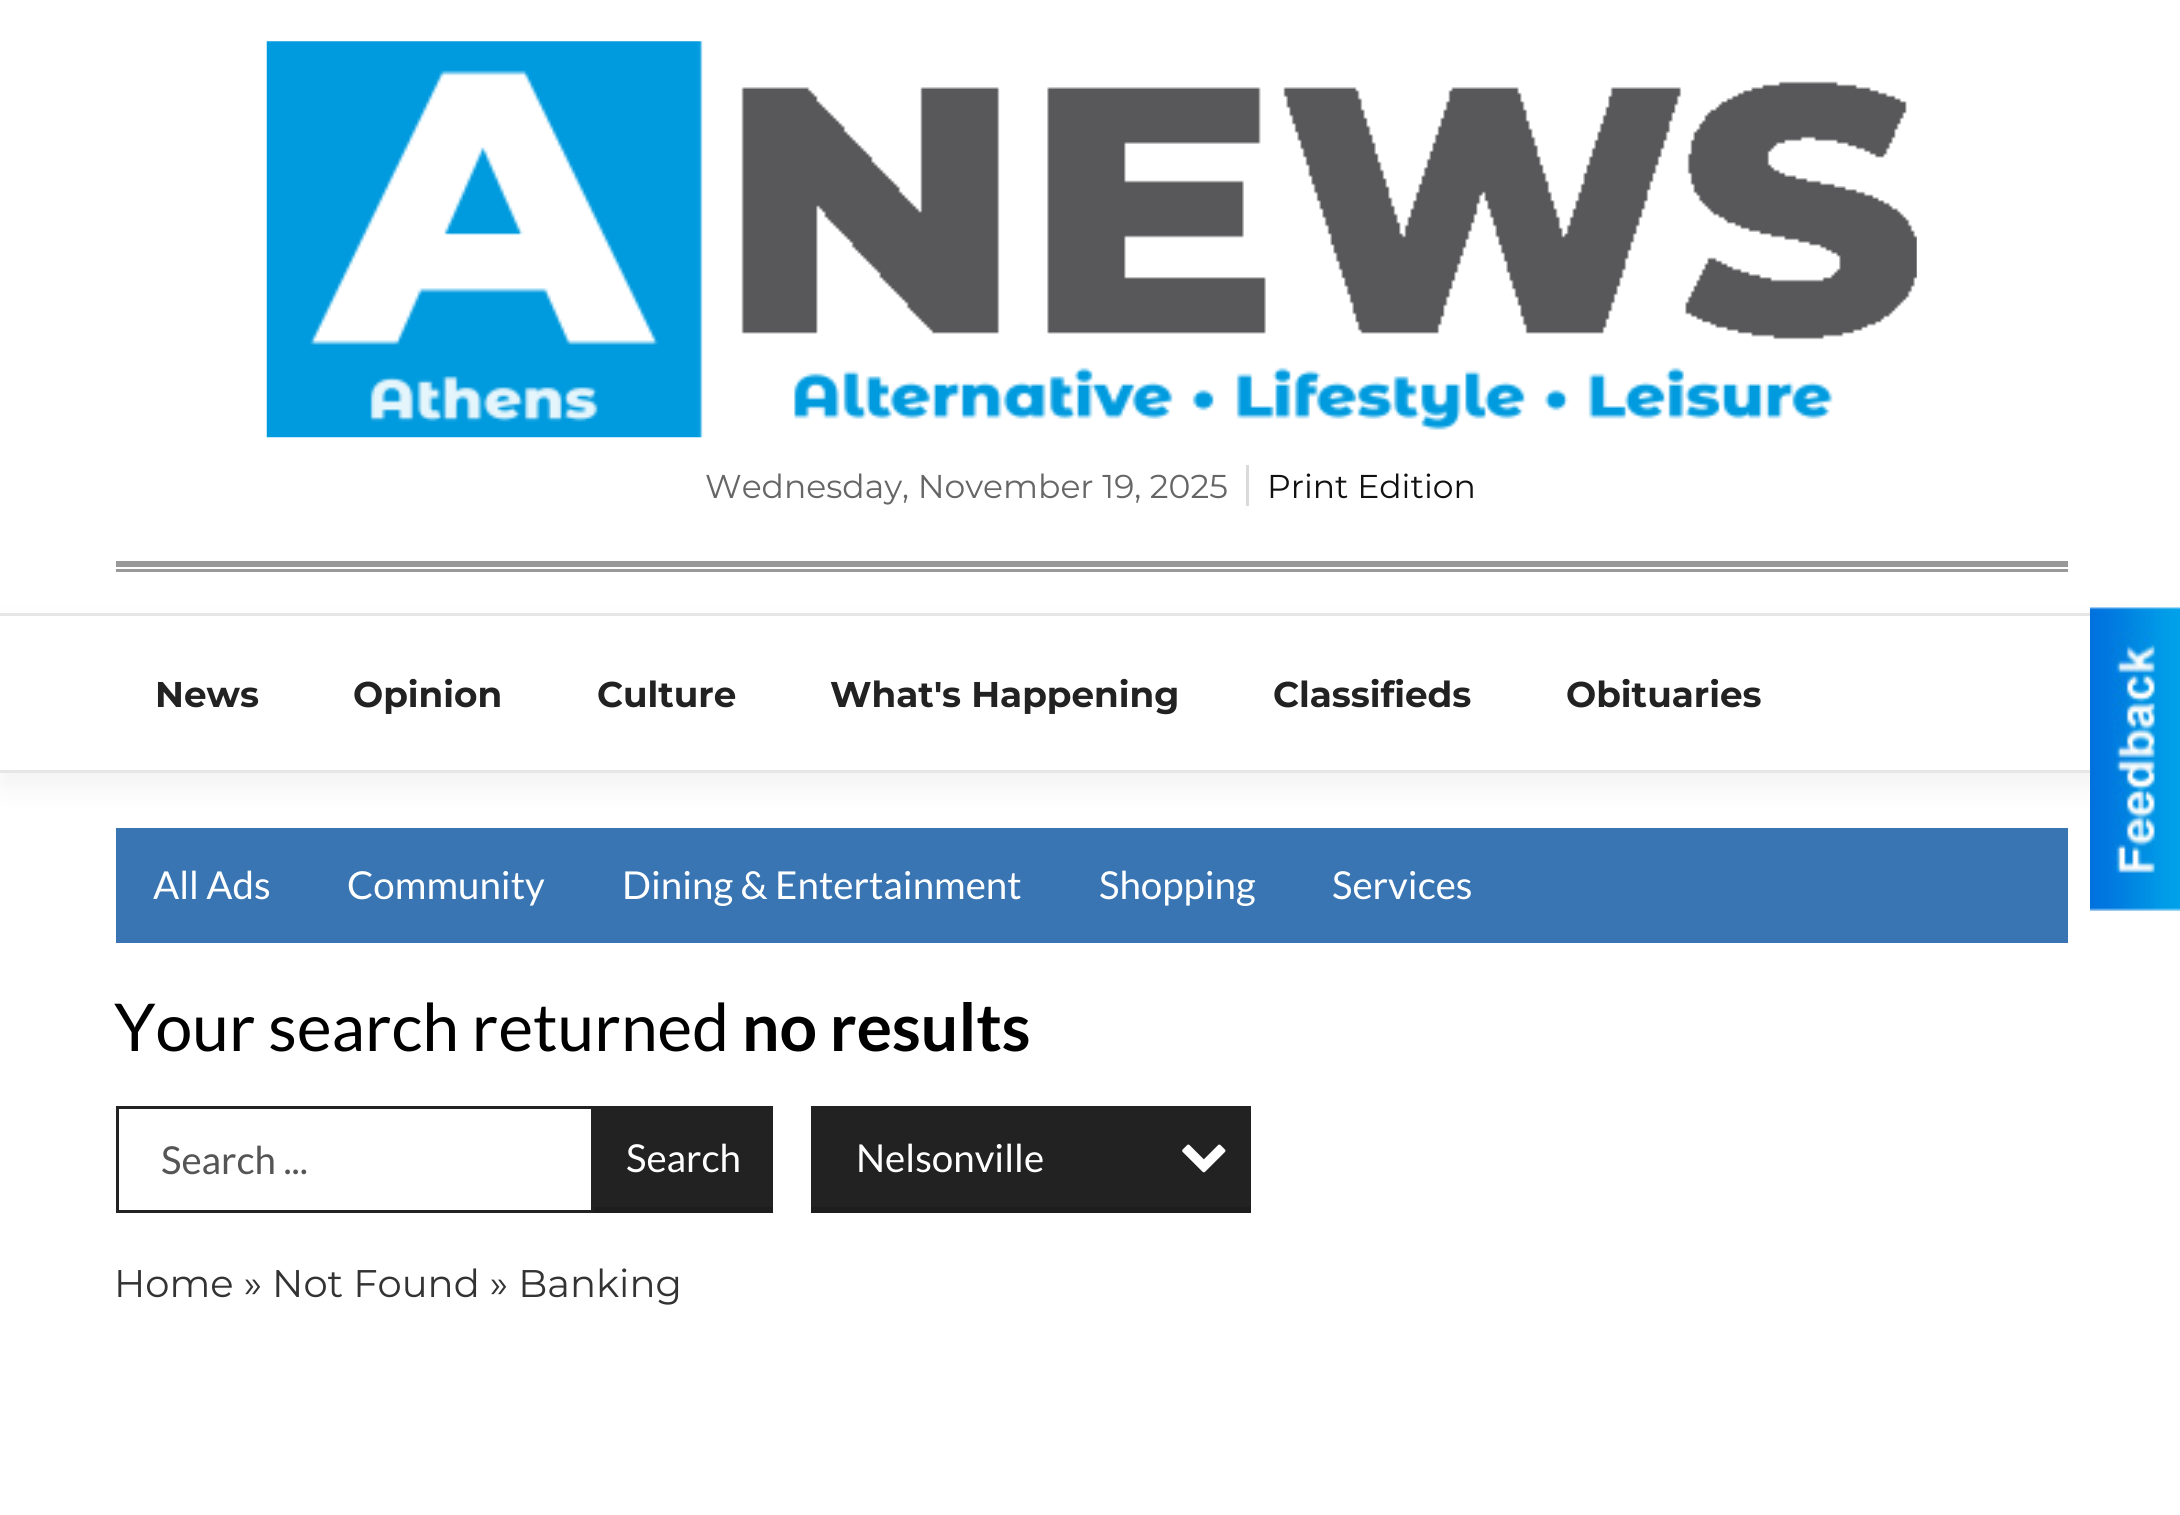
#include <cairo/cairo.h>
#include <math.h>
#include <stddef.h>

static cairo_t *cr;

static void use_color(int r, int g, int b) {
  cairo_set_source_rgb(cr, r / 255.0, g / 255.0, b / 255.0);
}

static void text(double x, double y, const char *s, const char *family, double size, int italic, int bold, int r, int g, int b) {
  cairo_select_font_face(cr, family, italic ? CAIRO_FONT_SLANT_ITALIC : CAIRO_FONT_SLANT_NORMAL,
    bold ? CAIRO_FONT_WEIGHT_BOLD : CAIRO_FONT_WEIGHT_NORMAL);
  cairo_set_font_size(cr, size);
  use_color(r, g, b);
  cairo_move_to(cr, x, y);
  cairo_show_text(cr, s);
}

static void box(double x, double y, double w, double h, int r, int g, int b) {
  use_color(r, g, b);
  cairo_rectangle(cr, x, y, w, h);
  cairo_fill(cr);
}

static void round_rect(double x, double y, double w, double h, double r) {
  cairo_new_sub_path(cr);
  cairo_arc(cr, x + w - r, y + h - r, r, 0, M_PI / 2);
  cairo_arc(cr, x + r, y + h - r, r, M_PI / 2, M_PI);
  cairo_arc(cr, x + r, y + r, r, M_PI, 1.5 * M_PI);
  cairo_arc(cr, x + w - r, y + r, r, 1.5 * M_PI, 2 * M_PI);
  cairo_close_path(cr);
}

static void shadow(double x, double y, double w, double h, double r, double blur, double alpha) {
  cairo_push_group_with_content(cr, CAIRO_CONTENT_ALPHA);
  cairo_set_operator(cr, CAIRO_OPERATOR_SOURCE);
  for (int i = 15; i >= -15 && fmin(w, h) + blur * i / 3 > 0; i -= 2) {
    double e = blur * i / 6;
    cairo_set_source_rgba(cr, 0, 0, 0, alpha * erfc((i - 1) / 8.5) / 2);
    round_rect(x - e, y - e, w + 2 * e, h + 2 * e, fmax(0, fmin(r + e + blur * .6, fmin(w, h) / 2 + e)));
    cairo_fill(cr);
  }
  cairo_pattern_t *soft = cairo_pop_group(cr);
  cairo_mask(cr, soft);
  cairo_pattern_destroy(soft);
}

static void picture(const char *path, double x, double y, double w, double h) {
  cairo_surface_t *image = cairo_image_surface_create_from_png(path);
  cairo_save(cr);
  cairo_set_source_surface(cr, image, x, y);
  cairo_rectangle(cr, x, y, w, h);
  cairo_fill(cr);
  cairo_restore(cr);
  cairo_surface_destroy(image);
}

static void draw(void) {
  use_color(255, 255, 255);
  cairo_paint(cr);
  picture("img_01.png", 266, 41, 1651, 397);
  box(1246, 465, 3, 41, 218, 218, 218);
  box(116, 561, 1952, 6, 153, 153, 153);
  box(116, 569, 1952, 3, 153, 153, 153);
  box(116, 828, 1952, 115, 56, 117, 178);
  use_color(0, 0, 0);
  shadow(0, 627, 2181, 160, 0, 14, 0.05);
  box(0, 616, 2090, 154, 255, 255, 255);
  box(0, 613, 2090, 3, 230, 230, 230);
  box(0, 770, 2090, 3, 230, 230, 230);
  picture("img_02.png", 2090, 607, 90, 304);
  cairo_rectangle(cr, 117.5, 1107.5, 475, 104);
  use_color(34, 34, 34);
  cairo_set_line_width(cr, 3);
  cairo_stroke(cr);
  box(594, 1106, 179, 101, 34, 34, 34);
  box(594, 1207, 179, 6, 29, 29, 29);
  box(811, 1106, 440, 101, 34, 34, 34);
  box(811, 1207, 440, 6, 29, 29, 29);
  picture("img_03.png", 1182, 1144, 44, 29);
  text(705, 498, "Wednesday, November 19, 2025", "Montserrat", 33, 0, 0, 102, 102, 102);
  text(1267, 498, "Print Edition", "Montserrat", 33, 0, 0, 17, 17, 17);
  text(155, 707, "News", "Montserrat", 35.75, 0, 1, 34, 34, 34);
  text(353, 707, "Opinion", "Montserrat", 35.75, 0, 1, 34, 34, 34);
  text(597, 707, "Culture", "Montserrat", 35.75, 0, 1, 34, 34, 34);
  text(830, 707, "What's Happening", "Montserrat", 35.75, 0, 1, 34, 34, 34);
  text(1273, 707, "Classifieds", "Montserrat", 35.75, 0, 1, 34, 34, 34);
  text(1566, 707, "Obituaries", "Montserrat", 35.75, 0, 1, 34, 34, 34);
  text(153, 899, "All Ads", "Lato", 38.5, 0, 0, 255, 255, 255);
  text(347, 899, "Community", "Lato", 38.5, 0, 0, 255, 255, 255);
  text(622, 899, "Dining & Entertainment", "Lato", 38.5, 0, 0, 255, 255, 255);
  text(1099, 899, "Shopping", "Lato", 38.5, 0, 0, 255, 255, 255);
  text(1332, 899, "Services", "Lato", 38.5, 0, 0, 255, 255, 255);
  text(114, 1051, "Your search returned", "Lato", 66, 0, 0, 0, 0, 0);
  text(742, 1051, "no results", "Lato", 66, 0, 1, 0, 0, 0);
  text(161, 1174, "Search ...", "Lato", 38.5, 0, 0, 85, 85, 85);
  text(626, 1172, "Search", "Lato", 38.5, 0, 0, 255, 255, 255);
  text(856, 1172, "Nelsonville", "Lato", 38.5, 0, 0, 255, 255, 255);
  text(114, 1297, "Home » Not Found » Banking", "Montserrat", 38.5, 0, 0, 51, 51, 51);
}

int main(void) {
  cairo_surface_t *surface = cairo_image_surface_create(CAIRO_FORMAT_RGB24, 2180, 1515);
  cr = cairo_create(surface);
  cairo_font_options_t *options = cairo_font_options_create();
  cairo_font_options_set_hint_metrics(options, CAIRO_HINT_METRICS_OFF);
  cairo_font_options_set_hint_style(options, CAIRO_HINT_STYLE_NONE);
  cairo_set_font_options(cr, options);
  cairo_set_miter_limit(cr, 4);
  draw();
  cairo_surface_write_to_png(surface, "out.png");
  cairo_font_options_destroy(options);
  cairo_destroy(cr);
  cairo_surface_destroy(surface);
  return 0;
}
